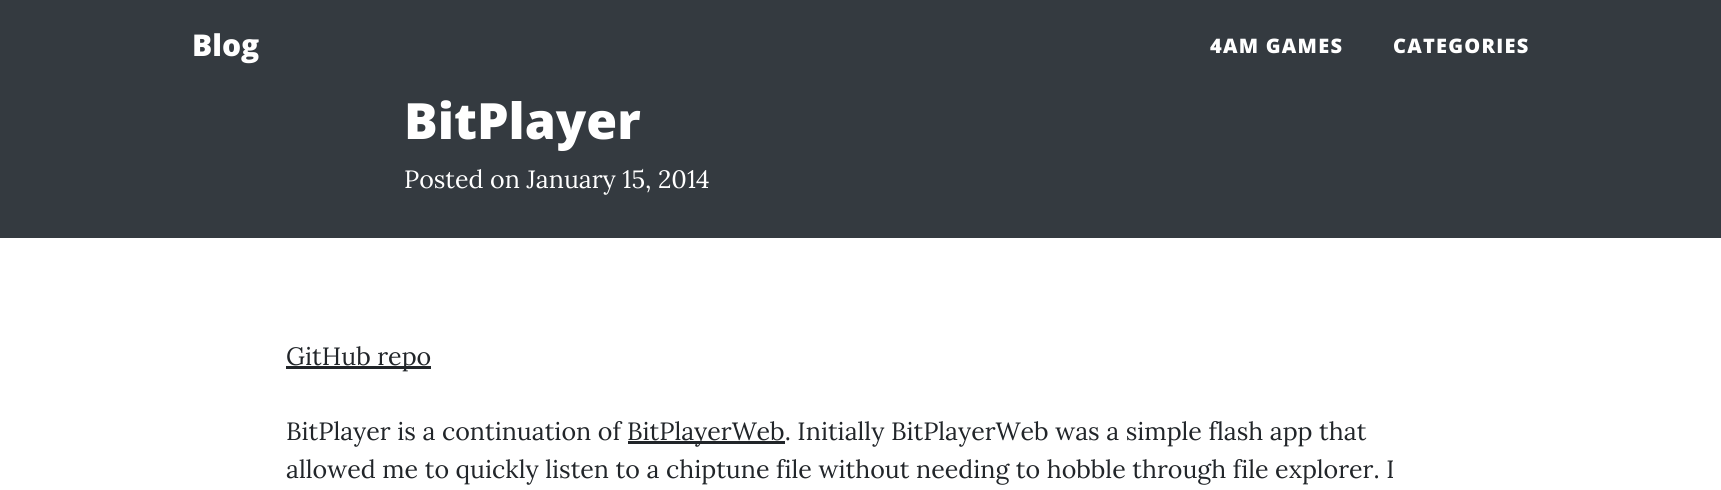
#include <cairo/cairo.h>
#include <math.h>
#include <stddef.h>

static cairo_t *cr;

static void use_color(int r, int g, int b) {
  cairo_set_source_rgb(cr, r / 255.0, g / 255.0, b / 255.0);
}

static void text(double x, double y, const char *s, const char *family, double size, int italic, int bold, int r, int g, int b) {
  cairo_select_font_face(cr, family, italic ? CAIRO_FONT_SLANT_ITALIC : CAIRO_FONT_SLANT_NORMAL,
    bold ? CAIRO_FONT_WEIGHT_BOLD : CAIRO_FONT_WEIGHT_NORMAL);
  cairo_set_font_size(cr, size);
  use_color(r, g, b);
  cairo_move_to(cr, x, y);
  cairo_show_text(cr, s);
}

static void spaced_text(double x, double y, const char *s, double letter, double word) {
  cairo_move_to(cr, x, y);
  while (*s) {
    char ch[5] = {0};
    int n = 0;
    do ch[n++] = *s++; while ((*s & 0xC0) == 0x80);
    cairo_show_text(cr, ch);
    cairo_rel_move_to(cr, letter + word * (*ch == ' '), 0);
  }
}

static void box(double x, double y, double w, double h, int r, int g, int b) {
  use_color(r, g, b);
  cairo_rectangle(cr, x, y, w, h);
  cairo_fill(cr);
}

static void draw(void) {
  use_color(255, 255, 255);
  cairo_paint(cr);
  box(0, 0, 1721, 238, 52, 58, 64);
  box(286, 366, 145, 3, 33, 37, 41);
  box(628, 441, 157, 3, 33, 37, 41);
  text(192, 56, "Blog", "Open Sans ExtraBold", 30, 0, 0, 255, 255, 255);
  cairo_set_font_size(cr, 20);
  spaced_text(1210, 53, "4AM GAMES", 1.25, 0);
  spaced_text(1393, 53, "CATEGORIES", 1.25, 0);
  text(404, 139, "BitPlayer", "Open Sans ExtraBold", 50, 0, 0, 255, 255, 255);
  text(404, 188, "Posted on January 15, 2014", "Lora", 25, 0, 0, 255, 255, 255);
  text(286, 365, "GitHub repo", "Lora", 25, 0, 0, 33, 37, 41);
  text(286, 440, "BitPlayer is a continuation of", "Lora", 25, 0, 0, 33, 37, 41);
  text(627, 440, "BitPlayerWeb. Initially BitPlayerWeb was a simple flash app that", "Lora", 25, 0, 0, 33, 37, 41);
  text(286, 478, "allowed me to quickly listen to a chiptune file without needing to hobble through file explorer. I", "Lora", 25, 0, 0, 33, 37, 41);
}

int main(void) {
  cairo_surface_t *surface = cairo_image_surface_create(CAIRO_FORMAT_RGB24, 1721, 490);
  cr = cairo_create(surface);
  cairo_font_options_t *options = cairo_font_options_create();
  cairo_font_options_set_hint_metrics(options, CAIRO_HINT_METRICS_OFF);
  cairo_font_options_set_hint_style(options, CAIRO_HINT_STYLE_NONE);
  cairo_set_font_options(cr, options);
  cairo_set_miter_limit(cr, 4);
  draw();
  cairo_surface_write_to_png(surface, "out.png");
  cairo_font_options_destroy(options);
  cairo_destroy(cr);
  cairo_surface_destroy(surface);
  return 0;
}
